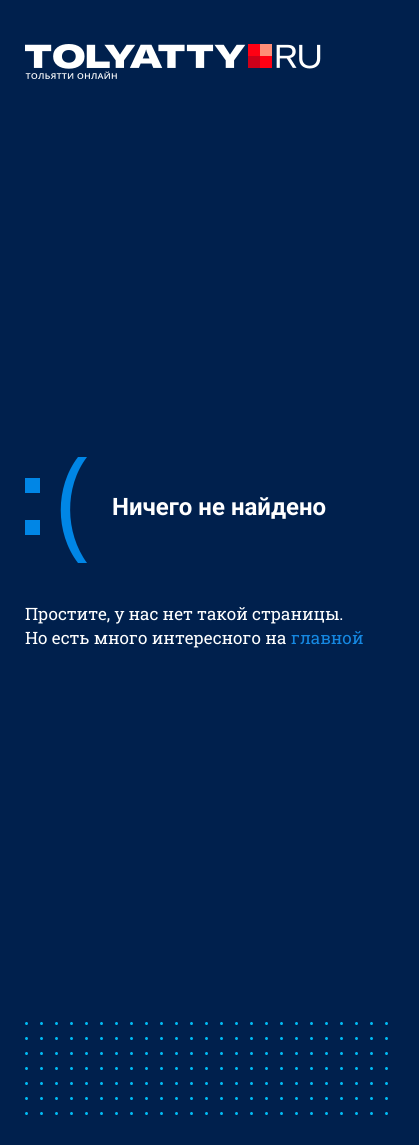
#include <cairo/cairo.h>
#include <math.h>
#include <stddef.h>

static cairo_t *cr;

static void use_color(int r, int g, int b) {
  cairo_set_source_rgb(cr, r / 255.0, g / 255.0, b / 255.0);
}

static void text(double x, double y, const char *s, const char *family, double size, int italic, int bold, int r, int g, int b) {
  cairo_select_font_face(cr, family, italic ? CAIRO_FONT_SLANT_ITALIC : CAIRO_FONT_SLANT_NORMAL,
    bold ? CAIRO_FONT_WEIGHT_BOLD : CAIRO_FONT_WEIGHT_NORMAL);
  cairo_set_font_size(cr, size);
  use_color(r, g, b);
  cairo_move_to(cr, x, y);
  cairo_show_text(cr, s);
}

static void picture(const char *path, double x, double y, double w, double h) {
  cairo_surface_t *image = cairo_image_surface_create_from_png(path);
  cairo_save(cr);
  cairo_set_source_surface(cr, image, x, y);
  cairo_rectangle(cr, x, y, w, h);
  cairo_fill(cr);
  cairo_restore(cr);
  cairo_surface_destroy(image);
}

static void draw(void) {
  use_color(0, 32, 77);
  cairo_paint(cr);
  picture("img_01.png", 25, 44, 296, 35);
  use_color(0, 134, 230);
  cairo_new_path(cr);
  cairo_move_to(cr, 87, 457);
  cairo_curve_to(cr, 64, 487, 65, 533, 87, 563);
  cairo_line_to(cr, 78, 563);
  cairo_curve_to(cr, 55, 533, 55, 487, 78, 457);
  cairo_close_path(cr);
  cairo_move_to(cr, 40, 478);
  cairo_line_to(cr, 25, 478);
  cairo_line_to(cr, 25, 493);
  cairo_line_to(cr, 40, 493);
  cairo_close_path(cr);
  cairo_move_to(cr, 40, 520);
  cairo_line_to(cr, 25, 520);
  cairo_line_to(cr, 25, 535);
  cairo_line_to(cr, 40, 535);
  cairo_close_path(cr);
  cairo_fill(cr);
  picture("img_02.png", 25, 1022, 363, 93);
  text(112, 515, "Ничего не найдено", "Roboto", 24, 0, 1, 255, 255, 255);
  text(25, 620, "Простите, у нас нет такой страницы.", "Roboto Slab", 17, 0, 0, 255, 255, 255);
  text(25, 644, "Но есть много интересного на", "Roboto Slab", 17, 0, 0, 255, 255, 255);
  text(291, 644, "главной", "Roboto Slab", 17, 0, 0, 21, 136, 226);
}

int main(void) {
  cairo_surface_t *surface = cairo_image_surface_create(CAIRO_FORMAT_RGB24, 419, 1145);
  cr = cairo_create(surface);
  cairo_font_options_t *options = cairo_font_options_create();
  cairo_font_options_set_hint_metrics(options, CAIRO_HINT_METRICS_OFF);
  cairo_font_options_set_hint_style(options, CAIRO_HINT_STYLE_NONE);
  cairo_set_font_options(cr, options);
  cairo_set_miter_limit(cr, 4);
  draw();
  cairo_surface_write_to_png(surface, "out.png");
  cairo_font_options_destroy(options);
  cairo_destroy(cr);
  cairo_surface_destroy(surface);
  return 0;
}
